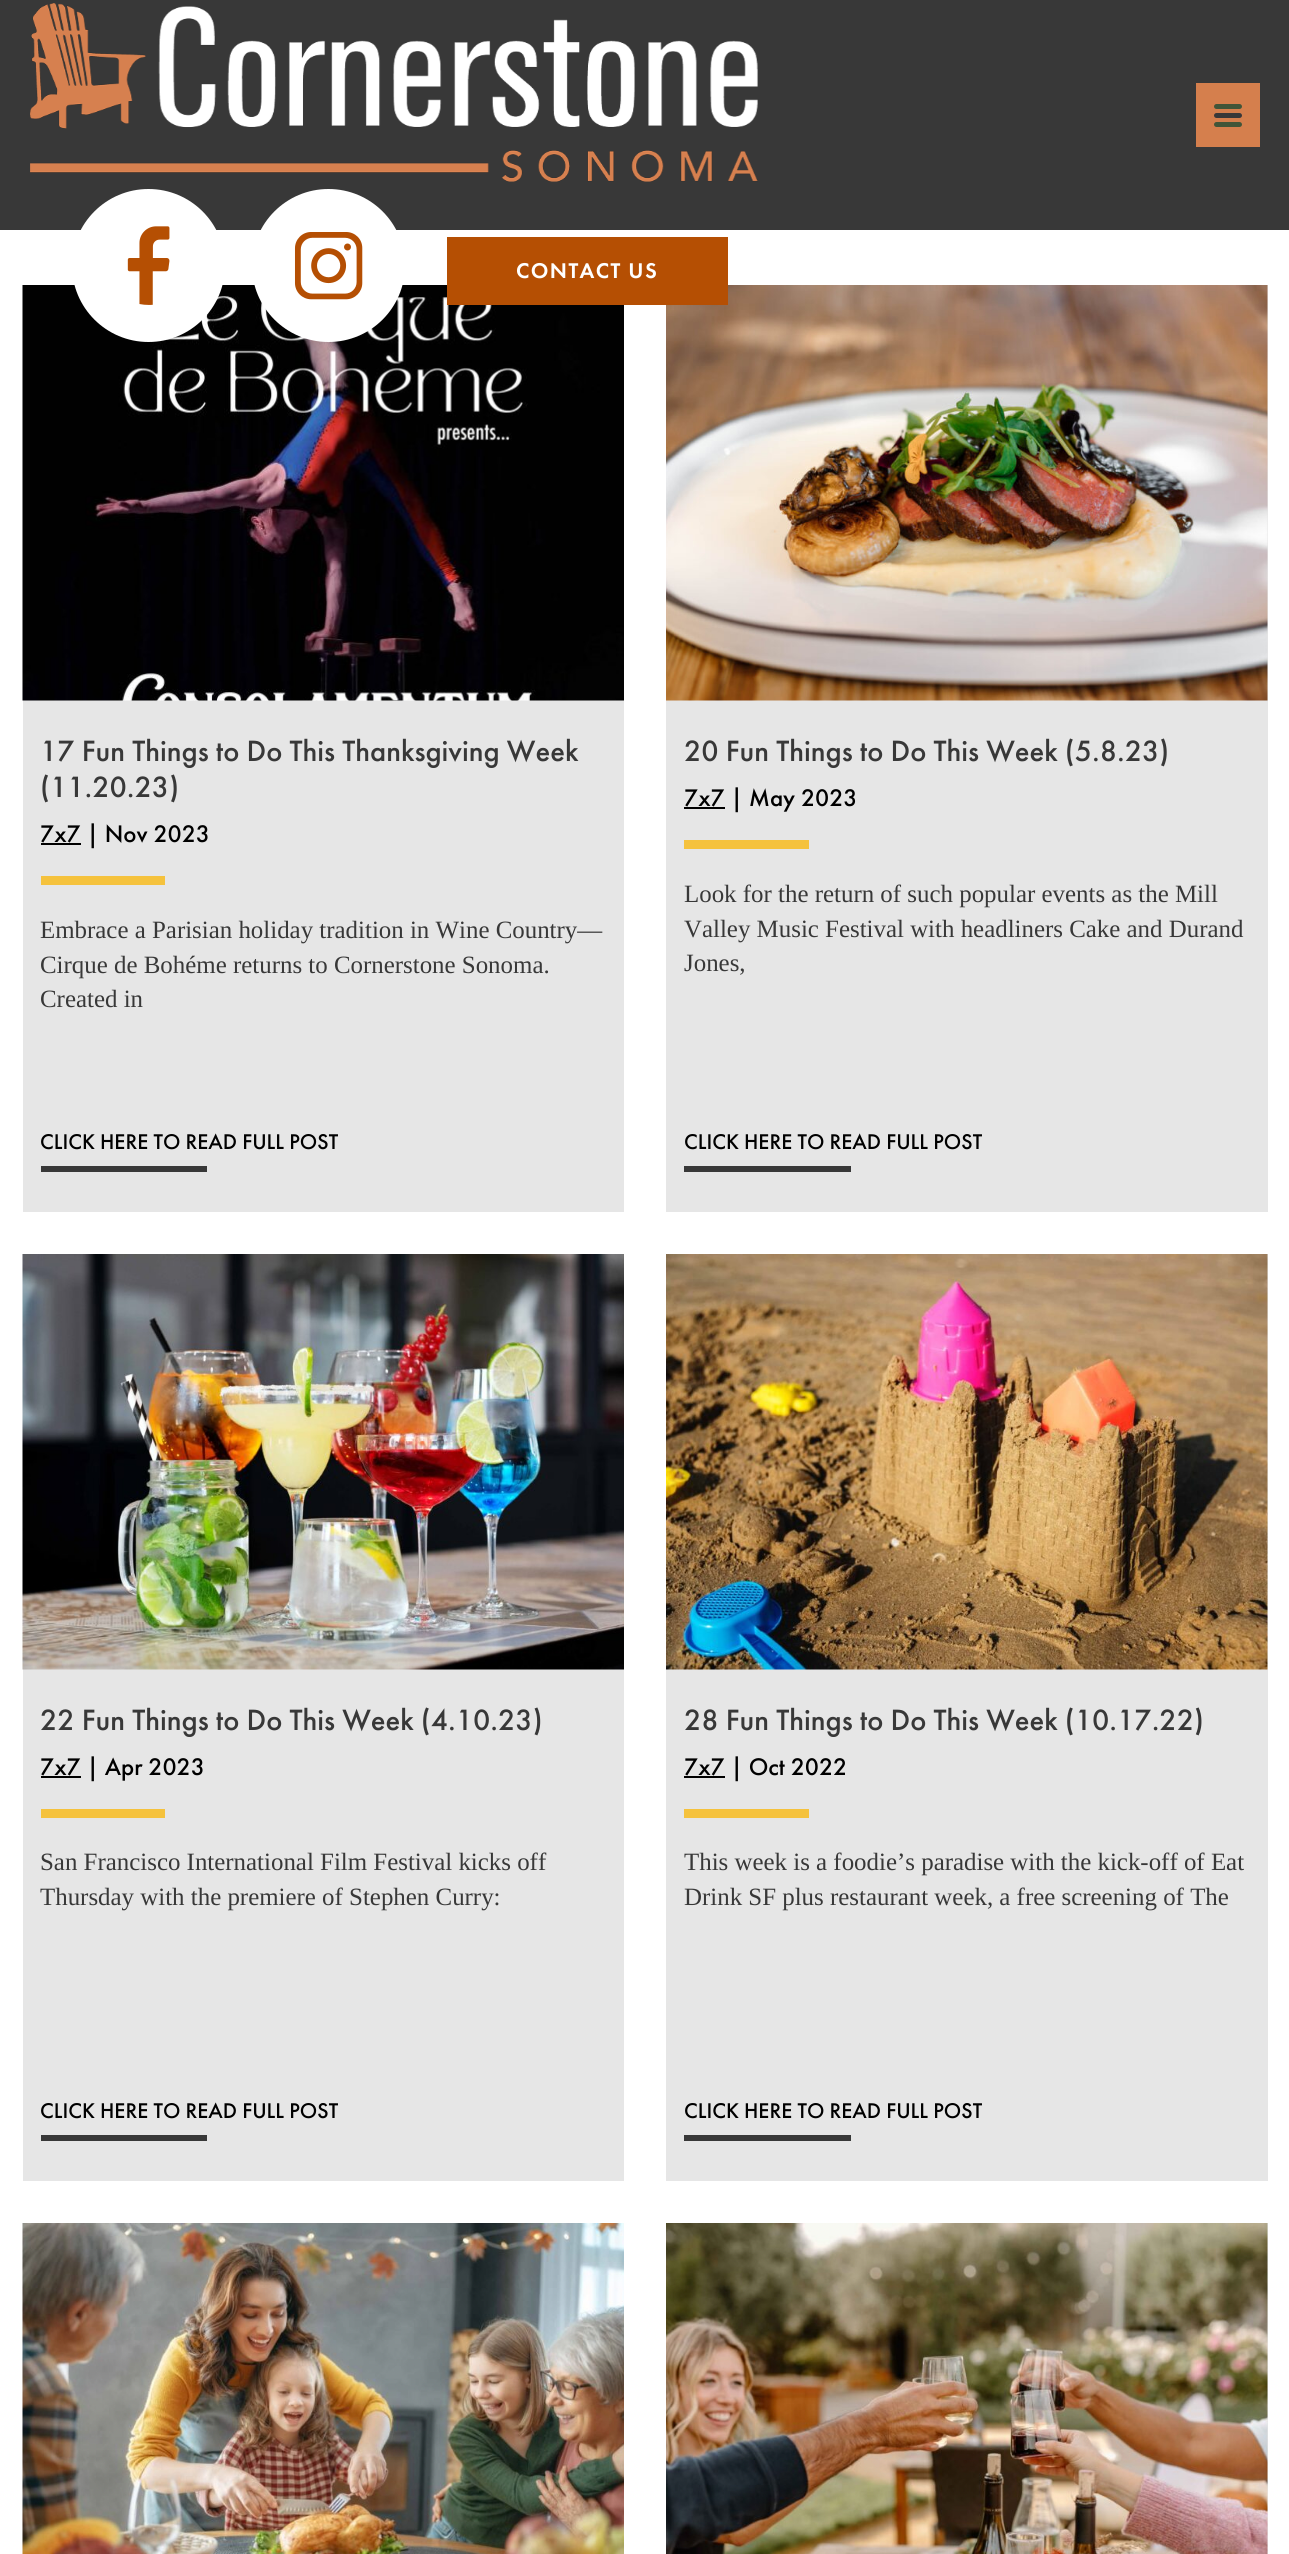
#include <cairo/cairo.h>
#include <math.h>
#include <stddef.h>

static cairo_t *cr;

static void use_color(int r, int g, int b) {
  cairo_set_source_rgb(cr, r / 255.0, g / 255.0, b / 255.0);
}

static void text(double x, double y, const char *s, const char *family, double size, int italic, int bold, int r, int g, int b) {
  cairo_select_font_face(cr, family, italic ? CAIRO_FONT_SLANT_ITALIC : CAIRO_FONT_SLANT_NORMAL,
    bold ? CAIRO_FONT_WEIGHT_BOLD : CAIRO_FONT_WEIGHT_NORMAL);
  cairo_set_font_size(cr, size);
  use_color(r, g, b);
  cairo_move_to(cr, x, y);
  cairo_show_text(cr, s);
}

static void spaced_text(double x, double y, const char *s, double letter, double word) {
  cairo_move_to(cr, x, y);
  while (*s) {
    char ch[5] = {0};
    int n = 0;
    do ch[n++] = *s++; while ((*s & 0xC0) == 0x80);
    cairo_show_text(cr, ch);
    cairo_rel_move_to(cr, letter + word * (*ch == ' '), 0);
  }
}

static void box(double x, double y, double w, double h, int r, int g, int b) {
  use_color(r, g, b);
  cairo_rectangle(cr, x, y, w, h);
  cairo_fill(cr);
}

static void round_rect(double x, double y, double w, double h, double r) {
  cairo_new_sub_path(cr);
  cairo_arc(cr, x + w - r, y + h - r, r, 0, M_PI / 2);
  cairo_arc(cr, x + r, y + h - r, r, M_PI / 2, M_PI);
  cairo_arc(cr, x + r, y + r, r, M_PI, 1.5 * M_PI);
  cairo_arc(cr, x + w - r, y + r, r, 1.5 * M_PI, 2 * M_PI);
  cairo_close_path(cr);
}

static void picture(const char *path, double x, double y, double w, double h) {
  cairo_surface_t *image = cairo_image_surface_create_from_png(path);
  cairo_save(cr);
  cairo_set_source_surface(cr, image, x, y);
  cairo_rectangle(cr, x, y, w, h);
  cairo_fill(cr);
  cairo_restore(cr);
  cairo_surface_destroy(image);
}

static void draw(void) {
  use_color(255, 255, 255);
  cairo_paint(cr);
  box(0, 0, 1289, 230, 56, 56, 56);
  picture("img_01.png", 30, 3, 728, 179);
  box(1196, 83, 64, 64, 213, 127, 77);
  use_color(56, 56, 56);
  round_rect(1214, 113, 28, 5, 2.5);
  cairo_fill(cr);
  use_color(65, 85, 56);
  round_rect(1214, 104, 28, 5, 2.5);
  cairo_fill(cr);
  round_rect(1214, 122, 28, 5, 2.5);
  cairo_fill(cr);
  box(23, 700, 601, 512, 230, 230, 230);
  picture("img_04.png", 22, 285, 602, 416);
  picture("img_02.png", 74, 189, 149, 153);
  picture("img_03.png", 254, 189, 149, 153);
  box(666, 285, 602, 927, 230, 230, 230);
  picture("img_05.png", 666, 285, 602, 416);
  box(447, 237, 281, 68, 181, 79, 3);
  box(41, 843, 40, 2, 0, 0, 0);
  box(41, 876, 124, 9, 245, 194, 61);
  box(41, 1166, 166, 6, 56, 56, 56);
  box(684, 807, 41, 2, 0, 0, 0);
  box(684, 840, 125, 9, 245, 194, 61);
  box(684, 1166, 167, 6, 56, 56, 56);
  box(23, 1669, 601, 512, 230, 230, 230);
  picture("img_06.png", 22, 1254, 602, 416);
  box(41, 1776, 40, 2, 0, 0, 0);
  box(41, 1809, 124, 9, 245, 194, 61);
  box(41, 2135, 166, 6, 56, 56, 56);
  box(666, 1254, 602, 927, 230, 230, 230);
  picture("img_07.png", 666, 1254, 602, 416);
  box(684, 1776, 41, 2, 0, 0, 0);
  box(684, 1809, 125, 9, 245, 194, 61);
  box(684, 2135, 167, 6, 56, 56, 56);
  picture("img_08.png", 22, 2223, 602, 331);
  box(1267, 2223, 1, 331, 230, 230, 230);
  picture("img_09.png", 666, 2223, 602, 331);
  cairo_select_font_face(cr, "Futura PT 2 Medium", CAIRO_FONT_SLANT_NORMAL, CAIRO_FONT_WEIGHT_NORMAL);
  cairo_set_font_size(cr, 22.1);
  use_color(255, 255, 255);
  spaced_text(516, 278, "CONTACT US", 1.4, 0);
  text(40, 761, "17 Fun Things to Do This Thanksgiving Week", "Futura PT Medium", 30.5, 0, 0, 56, 56, 56);
  text(40, 797, "(11.20.23)", "Futura PT Medium", 30.5, 0, 0, 56, 56, 56);
  text(40, 842, "7x7 | Nov 2023", "Futura PT Medium", 24.9, 0, 0, 0, 0, 0);
  text(40, 938, "Embrace a Parisian holiday tradition in Wine Country—", "Liberation Serif", 24.9, 0, 0, 56, 56, 56);
  text(40, 973, "Cirque de Bohéme returns to Cornerstone Sonoma.", "Liberation Serif", 24.9, 0, 0, 56, 56, 56);
  text(40, 1007, "Created in", "Liberation Serif", 24.9, 0, 0, 56, 56, 56);
  text(40, 1149, "CLICK HERE TO READ FULL POST", "Futura PT Medium", 22.1, 0, 0, 0, 0, 0);
  text(684, 761, "20 Fun Things to Do This Week (5.8.23)", "Futura PT Medium", 30.5, 0, 0, 56, 56, 56);
  text(684, 806, "7x7 | May 2023", "Futura PT Medium", 24.9, 0, 0, 0, 0, 0);
  text(684, 902, "Look for the return of such popular events as the Mill", "Liberation Serif", 24.9, 0, 0, 56, 56, 56);
  text(684, 937, "Valley Music Festival with headliners Cake and Durand", "Liberation Serif", 24.9, 0, 0, 56, 56, 56);
  text(684, 971, "Jones,", "Liberation Serif", 24.9, 0, 0, 56, 56, 56);
  text(684, 1149, "CLICK HERE TO READ FULL POST", "Futura PT Medium", 22.1, 0, 0, 0, 0, 0);
  text(40, 1730, "22 Fun Things to Do This Week (4.10.23)", "Futura PT Medium", 30.5, 0, 0, 56, 56, 56);
  text(40, 1775, "7x7 | Apr 2023", "Futura PT Medium", 24.9, 0, 0, 0, 0, 0);
  text(40, 1870, "San Francisco International Film Festival kicks off", "Liberation Serif", 24.9, 0, 0, 56, 56, 56);
  text(40, 1905, "Thursday with the premiere of Stephen Curry:", "Liberation Serif", 24.9, 0, 0, 56, 56, 56);
  text(40, 2118, "CLICK HERE TO READ FULL POST", "Futura PT Medium", 22.1, 0, 0, 0, 0, 0);
  text(684, 1730, "28 Fun Things to Do This Week (10.17.22)", "Futura PT Medium", 30.5, 0, 0, 56, 56, 56);
  text(684, 1775, "7x7 | Oct 2022", "Futura PT Medium", 24.9, 0, 0, 0, 0, 0);
  text(684, 1870, "This week is a foodie’s paradise with the kick-off of Eat", "Liberation Serif", 24.9, 0, 0, 56, 56, 56);
  text(684, 1905, "Drink SF plus restaurant week, a free screening of The", "Liberation Serif", 24.9, 0, 0, 56, 56, 56);
  text(684, 2118, "CLICK HERE TO READ FULL POST", "Futura PT Medium", 22.1, 0, 0, 0, 0, 0);
}

int main(void) {
  cairo_surface_t *surface = cairo_image_surface_create(CAIRO_FORMAT_RGB24, 1289, 2554);
  cr = cairo_create(surface);
  cairo_font_options_t *options = cairo_font_options_create();
  cairo_font_options_set_hint_metrics(options, CAIRO_HINT_METRICS_OFF);
  cairo_font_options_set_hint_style(options, CAIRO_HINT_STYLE_NONE);
  cairo_set_font_options(cr, options);
  cairo_set_miter_limit(cr, 4);
  draw();
  cairo_surface_write_to_png(surface, "out.png");
  cairo_font_options_destroy(options);
  cairo_destroy(cr);
  cairo_surface_destroy(surface);
  return 0;
}
